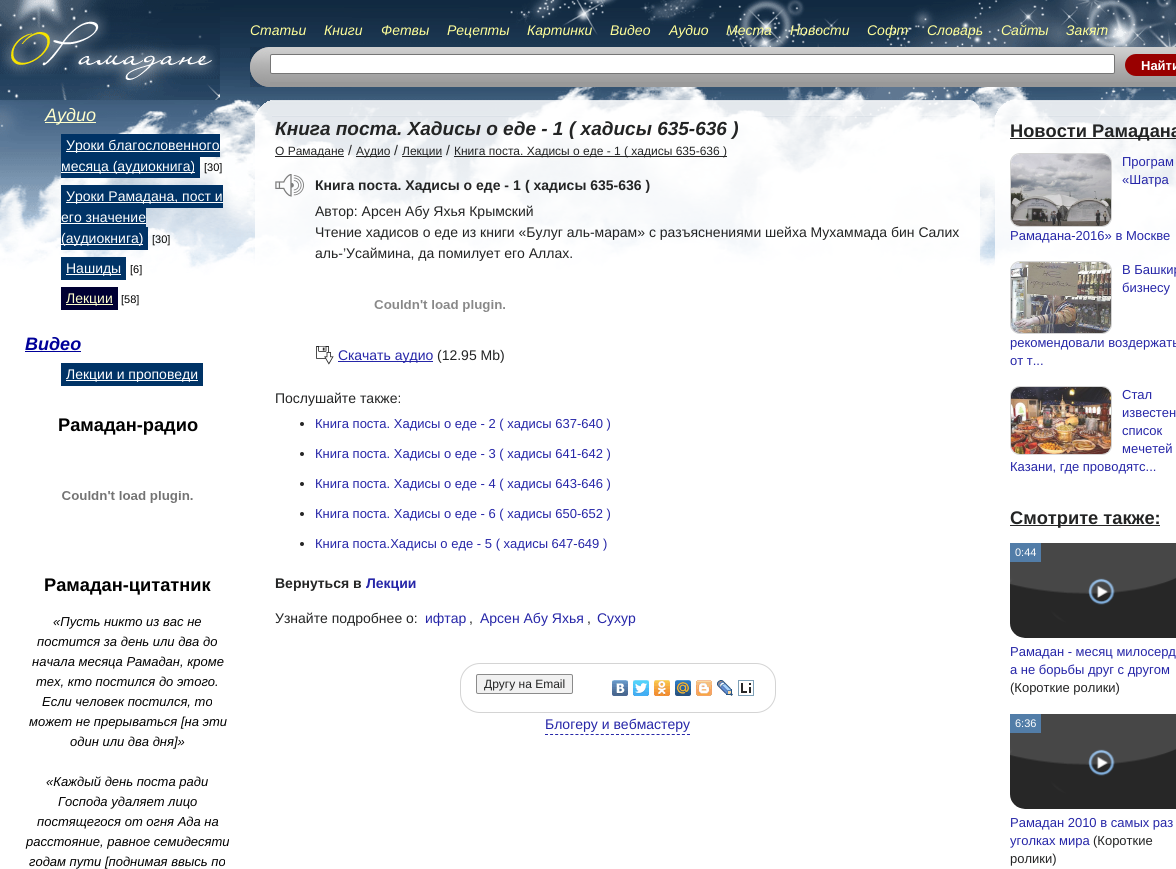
#include <cairo/cairo.h>
#include <math.h>
#include <stddef.h>

static cairo_t *cr;

static void use_color(int r, int g, int b) {
  cairo_set_source_rgb(cr, r / 255.0, g / 255.0, b / 255.0);
}

static void text(double x, double y, const char *s, const char *family, double size, int italic, int bold, int r, int g, int b) {
  cairo_select_font_face(cr, family, italic ? CAIRO_FONT_SLANT_ITALIC : CAIRO_FONT_SLANT_NORMAL,
    bold ? CAIRO_FONT_WEIGHT_BOLD : CAIRO_FONT_WEIGHT_NORMAL);
  cairo_set_font_size(cr, size);
  use_color(r, g, b);
  cairo_move_to(cr, x, y);
  cairo_show_text(cr, s);
}

static void box(double x, double y, double w, double h, int r, int g, int b) {
  use_color(r, g, b);
  cairo_rectangle(cr, x, y, w, h);
  cairo_fill(cr);
}

static void round_rect(double x, double y, double w, double h, double r) {
  cairo_new_sub_path(cr);
  cairo_arc(cr, x + w - r, y + h - r, r, 0, M_PI / 2);
  cairo_arc(cr, x + r, y + h - r, r, M_PI / 2, M_PI);
  cairo_arc(cr, x + r, y + r, r, M_PI, 1.5 * M_PI);
  cairo_arc(cr, x + w - r, y + r, r, 1.5 * M_PI, 2 * M_PI);
  cairo_close_path(cr);
}

static void picture(const char *path, double x, double y, double w, double h) {
  cairo_surface_t *image = cairo_image_surface_create_from_png(path);
  cairo_save(cr);
  cairo_set_source_surface(cr, image, x, y);
  cairo_rectangle(cr, x, y, w, h);
  cairo_fill(cr);
  cairo_restore(cr);
  cairo_surface_destroy(image);
}

static void draw(void) {
  use_color(255, 255, 255);
  cairo_paint(cr);
  picture("img_01.png", 0, 0, 1176, 280);
  picture("img_02.png", 0, 0, 220, 100);
  picture("img_03.png", 250, 47, 20, 40);
  box(270, 82, 906, 5, 153, 153, 153);
  picture("img_04.png", 270, 47, 906, 35);
  use_color(255, 255, 255);
  round_rect(270.5, 54.5, 844, 19, 1.5);
  cairo_fill_preserve(cr);
  use_color(118, 118, 118);
  cairo_set_line_width(cr, 1);
  cairo_stroke(cr);
  use_color(153, 0, 0);
  round_rect(1125, 54, 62, 22, 11);
  cairo_fill(cr);
  box(45, 122, 51, 1, 255, 255, 204);
  box(61, 134, 159, 23, 0, 51, 102);
  box(66, 151, 154, 1, 255, 255, 255);
  box(61, 157, 139, 21, 0, 51, 102);
  box(61, 172, 134, 1, 255, 255, 255);
  box(61, 185, 162, 23, 0, 51, 102);
  box(66, 202, 157, 1, 255, 255, 255);
  box(61, 208, 85, 19, 0, 51, 102);
  box(61, 223, 85, 1, 255, 255, 255);
  box(61, 227, 87, 23, 0, 51, 102);
  box(61, 244, 82, 1, 255, 255, 255);
  box(61, 257, 65, 23, 0, 51, 102);
  box(66, 274, 55, 1, 255, 255, 255);
  box(61, 287, 57, 23, 0, 0, 51);
  box(66, 304, 47, 1, 255, 255, 204);
  box(25, 351, 56, 1, 0, 0, 153);
  box(61, 363, 142, 23, 0, 51, 102);
  box(66, 380, 132, 1, 255, 255, 255);
  picture("img_05.png", 62, 491, 131, 12);
  picture("img_06.png", 255, 100, 17, 17);
  picture("img_07.png", 272, 100, 691, 17);
  picture("img_08.png", 963, 100, 17, 17);
  cairo_set_source_rgba(cr, 1, 1, 1, 0.85);
  cairo_rectangle(cr, 255, 117, 725, 163);
  cairo_fill(cr);
  cairo_set_source_rgba(cr, 0, 0, 0, 0.85);
  cairo_rectangle(cr, 275, 156, 69, 1);
  cairo_fill(cr);
  cairo_rectangle(cr, 356, 156, 34, 1);
  cairo_fill(cr);
  cairo_rectangle(cr, 402, 156, 40, 1);
  cairo_fill(cr);
  cairo_rectangle(cr, 454, 156, 170, 1);
  cairo_fill(cr);
  cairo_rectangle(cr, 624, 156, 103, 1);
  cairo_fill(cr);
  picture("img_09.png", 275, 174, 29, 23);
  picture("img_10.png", 374, 300, 131, 12);
  picture("img_11.png", 316, 346, 18, 19);
  box(338, 361, 95, 1, 38, 38, 168);
  use_color(38, 38, 38);
  cairo_arc(cr, 302, 424, 2, 0, 2 * M_PI);
  cairo_fill(cr);
  cairo_arc(cr, 302, 454, 2, 0, 2 * M_PI);
  cairo_fill(cr);
  cairo_arc(cr, 302, 484, 2, 0, 2 * M_PI);
  cairo_fill(cr);
  cairo_arc(cr, 302, 514, 2, 0, 2 * M_PI);
  cairo_fill(cr);
  cairo_arc(cr, 302, 544, 2, 0, 2 * M_PI);
  cairo_fill(cr);
  round_rect(460.5, 663.5, 315, 49, 19.5);
  use_color(212, 212, 212);
  cairo_stroke(cr);
  use_color(241, 241, 241);
  round_rect(476.5, 674.5, 96, 19, 1.5);
  cairo_fill_preserve(cr);
  use_color(139, 139, 139);
  cairo_stroke(cr);
  picture("img_12.png", 612, 680, 16, 16);
  picture("img_13.png", 633, 680, 16, 16);
  picture("img_14.png", 654, 680, 16, 16);
  picture("img_15.png", 675, 680, 16, 16);
  picture("img_16.png", 696, 680, 16, 16);
  picture("img_17.png", 717, 680, 16, 16);
  picture("img_18.png", 738, 680, 16, 16);
  cairo_new_path(cr);
  cairo_move_to(cr, 545, 734.5);
  cairo_line_to(cr, 690, 734.5);
  use_color(38, 38, 168);
  cairo_set_dash(cr, (double[]){3, 2.07}, 2, 0);
  cairo_stroke(cr);
  picture("img_19.png", 995, 100, 17, 17);
  picture("img_20.png", 1012, 100, 164, 17);
  cairo_set_source_rgba(cr, 1, 1, 1, 0.85);
  cairo_rectangle(cr, 995, 117, 181, 163);
  cairo_fill(cr);
  cairo_set_source_rgba(cr, 0, 0, 0, 0.85);
  cairo_rectangle(cr, 1010, 138, 166, 1);
  cairo_fill(cr);
  round_rect(1010.5, 153.5, 101, 73, 9.5);
  cairo_set_source_rgba(cr, 0.8, 0.8, 0.8, 0.85);
  cairo_set_dash(cr, NULL, 0, 0);
  cairo_stroke(cr);
  picture("img_21.png", 1011, 154, 100, 72);
  round_rect(1010.5, 261.5, 101, 72, 9.5);
  use_color(212, 212, 212);
  cairo_stroke(cr);
  picture("img_22.png", 1011, 262, 100, 71);
  round_rect(1010.5, 386.5, 101, 68, 9.5);
  cairo_stroke(cr);
  picture("img_23.png", 1011, 387, 100, 67);
  box(1010, 525, 150, 1, 38, 38, 38);
  picture("img_24.png", 1010, 543, 166, 95);
  box(1010, 543, 31, 19, 82, 125, 168);
  picture("img_24.png", 1010, 714, 166, 95);
  box(1010, 714, 31, 19, 82, 125, 168);
  text(250, 35, "Статьи", "Liberation Sans", 14, 1, 0, 255, 255, 153);
  text(324, 35, "Книги", "Liberation Sans", 14, 1, 0, 255, 255, 153);
  text(381, 35, "Фетвы", "Liberation Sans", 14, 1, 0, 255, 255, 153);
  text(447, 35, "Рецепты", "Liberation Sans", 14, 1, 0, 255, 255, 153);
  text(527, 35, "Картинки", "Liberation Sans", 14, 1, 0, 255, 255, 153);
  text(610, 35, "Видео", "Liberation Sans", 14, 1, 0, 255, 255, 153);
  text(669, 35, "Аудио", "Liberation Sans", 14, 1, 0, 255, 255, 153);
  text(726, 35, "Места", "Liberation Sans", 14, 1, 0, 255, 255, 153);
  text(790, 35, "Новости", "Liberation Sans", 14, 1, 0, 255, 255, 153);
  text(867, 35, "Софт", "Liberation Sans", 14, 1, 0, 255, 255, 153);
  text(927, 35, "Словарь", "Liberation Sans", 14, 1, 0, 255, 255, 153);
  text(1001, 35, "Сайты", "Liberation Sans", 14, 1, 0, 255, 255, 153);
  text(1066, 35, "Закят", "Liberation Sans", 14, 1, 0, 255, 255, 153);
  text(1141, 70, "Найти", "Liberation Sans", 13, 0, 1, 255, 255, 255);
  text(45, 121, "Аудио", "Liberation Sans", 18, 1, 0, 255, 255, 204);
  text(66, 150, "Уроки благословенного", "Liberation Sans", 14, 0, 0, 255, 255, 255);
  text(61, 171, "месяца (аудиокнига)", "Liberation Sans", 14, 0, 0, 255, 255, 255);
  text(204, 171, "[30]", "Liberation Sans", 11, 0, 0, 0, 0, 0);
  text(66, 201, "Уроки Рамадана, пост и", "Liberation Sans", 14, 0, 0, 255, 255, 255);
  text(61, 222, "его значение", "Liberation Sans", 14, 0, 0, 255, 255, 255);
  text(61, 243, "(аудиокнига)", "Liberation Sans", 14, 0, 0, 255, 255, 255);
  text(152, 243, "[30]", "Liberation Sans", 11, 0, 0, 0, 0, 0);
  text(66, 273, "Нашиды", "Liberation Sans", 14, 0, 0, 255, 255, 255);
  text(130, 273, "[6]", "Liberation Sans", 11, 0, 0, 0, 0, 0);
  text(66, 303, "Лекции", "Liberation Sans", 14, 0, 0, 255, 255, 204);
  text(121, 303, "[58]", "Liberation Sans", 11, 0, 0, 0, 0, 0);
  text(25, 350, "Видео", "Liberation Sans", 18, 1, 1, 0, 0, 153);
  text(66, 379, "Лекции и проповеди", "Liberation Sans", 14, 0, 0, 255, 255, 255);
  text(58, 431, "Рамадан-радио", "Liberation Sans", 18.25, 0, 1, 0, 0, 0);
  text(44, 591, "Рамадан-цитатник", "Liberation Sans", 18.25, 0, 1, 0, 0, 0);
  text(53, 626, "«Пусть никто из вас не", "Liberation Sans", 13, 1, 0, 0, 0, 0);
  text(37, 646, "постится за день или два до", "Liberation Sans", 13, 1, 0, 0, 0, 0);
  text(32, 666, "начала месяца Рамадан, кроме", "Liberation Sans", 13, 1, 0, 0, 0, 0);
  text(36, 686, "тех, кто постился до этого.", "Liberation Sans", 13, 1, 0, 0, 0, 0);
  text(42, 706, "Если человек постился, то", "Liberation Sans", 13, 1, 0, 0, 0, 0);
  text(29, 726, "может не прерываться [на эти", "Liberation Sans", 13, 1, 0, 0, 0, 0);
  text(70, 746, "один или два дня]»", "Liberation Sans", 13, 1, 0, 0, 0, 0);
  text(46, 786, "«Каждый день поста ради", "Liberation Sans", 13, 1, 0, 0, 0, 0);
  text(58, 806, "Господа удаляет лицо", "Liberation Sans", 13, 1, 0, 0, 0, 0);
  text(37, 826, "постящегося от огня Ада на", "Liberation Sans", 13, 1, 0, 0, 0, 0);
  text(26, 846, "расстояние, равное семидесяти", "Liberation Sans", 13, 1, 0, 0, 0, 0);
  text(29, 866, "годам пути [поднимая ввысь по", "Liberation Sans", 13, 1, 0, 0, 0, 0);
  text(275, 135, "Книга поста. Хадисы о еде - 1", "Liberation Sans", 19, 1, 1, 35, 36, 36);
  text(569, 135, "( хадисы 635-636 )", "Liberation Sans", 19, 1, 1, 35, 36, 36);
  text(275, 155, "О Рамадане", "Liberation Sans", 12, 0, 0, 35, 36, 36);
  text(348, 155, "/", "Liberation Sans", 14, 0, 0, 35, 36, 36);
  text(356, 155, "Аудио", "Liberation Sans", 12, 0, 0, 35, 36, 36);
  text(394, 155, "/", "Liberation Sans", 14, 0, 0, 35, 36, 36);
  text(402, 155, "Лекции", "Liberation Sans", 12, 0, 0, 35, 36, 36);
  text(446, 155, "/", "Liberation Sans", 14, 0, 0, 35, 36, 36);
  text(454, 155, "Книга поста. Хадисы о еде - 1", "Liberation Sans", 12, 0, 0, 35, 36, 36);
  text(624, 155, "( хадисы 635-636 )", "Liberation Sans", 12, 0, 0, 35, 36, 36);
  text(315, 190, "Книга поста. Хадисы о еде - 1", "Liberation Sans", 14, 0, 1, 35, 36, 36);
  text(525, 190, "( хадисы 635-636 )", "Liberation Sans", 14, 0, 1, 35, 36, 36);
  text(315, 216, "Автор: Арсен Абу Яхья Крымский", "Liberation Sans", 14, 0, 0, 35, 36, 36);
  text(315, 237, "Чтение хадисов о еде из книги «Булуг аль-марам» с разъяснениями шейха Мухаммада бин Салих", "Liberation Sans", 14, 0, 0, 35, 36, 36);
  text(315, 258, "аль-’Усаймина, да помилует его Аллах.", "Liberation Sans", 14, 0, 0, 35, 36, 36);
  text(338, 360, "Скачать аудио", "Liberation Sans", 14, 0, 0, 38, 38, 168);
  text(437, 360, "(12.95 Mb)", "Liberation Sans", 14, 0, 0, 35, 36, 36);
  text(275, 403, "Послушайте также:", "Liberation Sans", 14, 0, 0, 35, 36, 36);
  text(315, 428, "Книга поста. Хадисы о еде - 2 ( хадисы 637-640 )", "Liberation Sans", 13, 0, 0, 38, 38, 168);
  text(315, 458, "Книга поста. Хадисы о еде - 3 ( хадисы 641-642 )", "Liberation Sans", 13, 0, 0, 38, 38, 168);
  text(315, 488, "Книга поста. Хадисы о еде - 4 ( хадисы 643-646 )", "Liberation Sans", 13, 0, 0, 38, 38, 168);
  text(315, 518, "Книга поста. Хадисы о еде - 6 ( хадисы 650-652 )", "Liberation Sans", 13, 0, 0, 38, 38, 168);
  text(315, 548, "Книга поста.Хадисы о еде - 5 ( хадисы 647-649 )", "Liberation Sans", 13, 0, 0, 38, 38, 168);
  text(275, 588, "Вернуться в", "Liberation Sans", 14, 0, 1, 35, 36, 36);
  text(366, 588, "Лекции", "Liberation Sans", 14, 0, 1, 38, 38, 168);
  text(275, 623, "Узнайте подробнее о:", "Liberation Sans", 14, 0, 0, 35, 36, 36);
  text(425, 623, "ифтар", "Liberation Sans", 14, 0, 0, 38, 38, 168);
  text(469, 623, ",", "Liberation Sans", 14, 0, 0, 35, 36, 36);
  text(480, 623, "Арсен Абу Яхья", "Liberation Sans", 14, 0, 0, 38, 38, 168);
  text(587, 623, ",", "Liberation Sans", 14, 0, 0, 35, 36, 36);
  text(597, 623, "Сухур", "Liberation Sans", 14, 0, 0, 38, 38, 168);
  text(484, 688, "Другу на Email", "Liberation Sans", 12, 0, 0, 35, 36, 36);
  text(545, 729, "Блогеру и вебмастеру", "Liberation Sans", 14, 0, 0, 38, 38, 168);
  text(1010, 137, "Новости Рамадана", "Liberation Sans", 18.25, 0, 1, 35, 36, 36);
  text(1122, 166, "Програм", "Liberation Sans", 13, 0, 0, 38, 38, 168);
  text(1122, 184, "«Шатра", "Liberation Sans", 13, 0, 0, 38, 38, 168);
  text(1010, 240, "Рамадана-2016» в Москве", "Liberation Sans", 13, 0, 0, 38, 38, 168);
  text(1122, 274, "В Башкир", "Liberation Sans", 13, 0, 0, 38, 38, 168);
  text(1122, 292, "бизнесу", "Liberation Sans", 13, 0, 0, 38, 38, 168);
  text(1010, 347, "рекомендовали воздержать", "Liberation Sans", 13, 0, 0, 38, 38, 168);
  text(1010, 365, "от т...", "Liberation Sans", 13, 0, 0, 38, 38, 168);
  text(1122, 399, "Стал", "Liberation Sans", 13, 0, 0, 38, 38, 168);
  text(1122, 417, "известен", "Liberation Sans", 13, 0, 0, 38, 38, 168);
  text(1122, 435, "список", "Liberation Sans", 13, 0, 0, 38, 38, 168);
  text(1122, 453, "мечетей", "Liberation Sans", 13, 0, 0, 38, 38, 168);
  text(1010, 471, "Казани, где проводятс...", "Liberation Sans", 13, 0, 0, 38, 38, 168);
  text(1010, 524, "Смотрите также:", "Liberation Sans", 18.25, 0, 1, 35, 36, 36);
  text(1015, 556, "0:44", "Liberation Sans", 11, 0, 0, 255, 255, 255);
  text(1010, 656, "Рамадан - месяц милосерд", "Liberation Sans", 13, 0, 0, 38, 38, 168);
  text(1010, 674, "а не борьбы друг с другом", "Liberation Sans", 13, 0, 0, 38, 38, 168);
  text(1010, 692, "(Короткие ролики)", "Liberation Sans", 13, 0, 0, 35, 36, 36);
  text(1015, 727, "6:36", "Liberation Sans", 11, 0, 0, 255, 255, 255);
  text(1010, 827, "Рамадан 2010 в самых раз", "Liberation Sans", 13, 0, 0, 38, 38, 168);
  text(1010, 845, "уголках мира", "Liberation Sans", 13, 0, 0, 38, 38, 168);
  text(1093, 845, "(Короткие", "Liberation Sans", 13, 0, 0, 35, 36, 36);
  text(1010, 863, "ролики)", "Liberation Sans", 13, 0, 0, 35, 36, 36);
}

int main(void) {
  cairo_surface_t *surface = cairo_image_surface_create(CAIRO_FORMAT_RGB24, 1176, 869);
  cr = cairo_create(surface);
  cairo_font_options_t *options = cairo_font_options_create();
  cairo_font_options_set_hint_metrics(options, CAIRO_HINT_METRICS_OFF);
  cairo_font_options_set_hint_style(options, CAIRO_HINT_STYLE_NONE);
  cairo_set_font_options(cr, options);
  cairo_set_miter_limit(cr, 4);
  draw();
  cairo_surface_write_to_png(surface, "out.png");
  cairo_font_options_destroy(options);
  cairo_destroy(cr);
  cairo_surface_destroy(surface);
  return 0;
}
